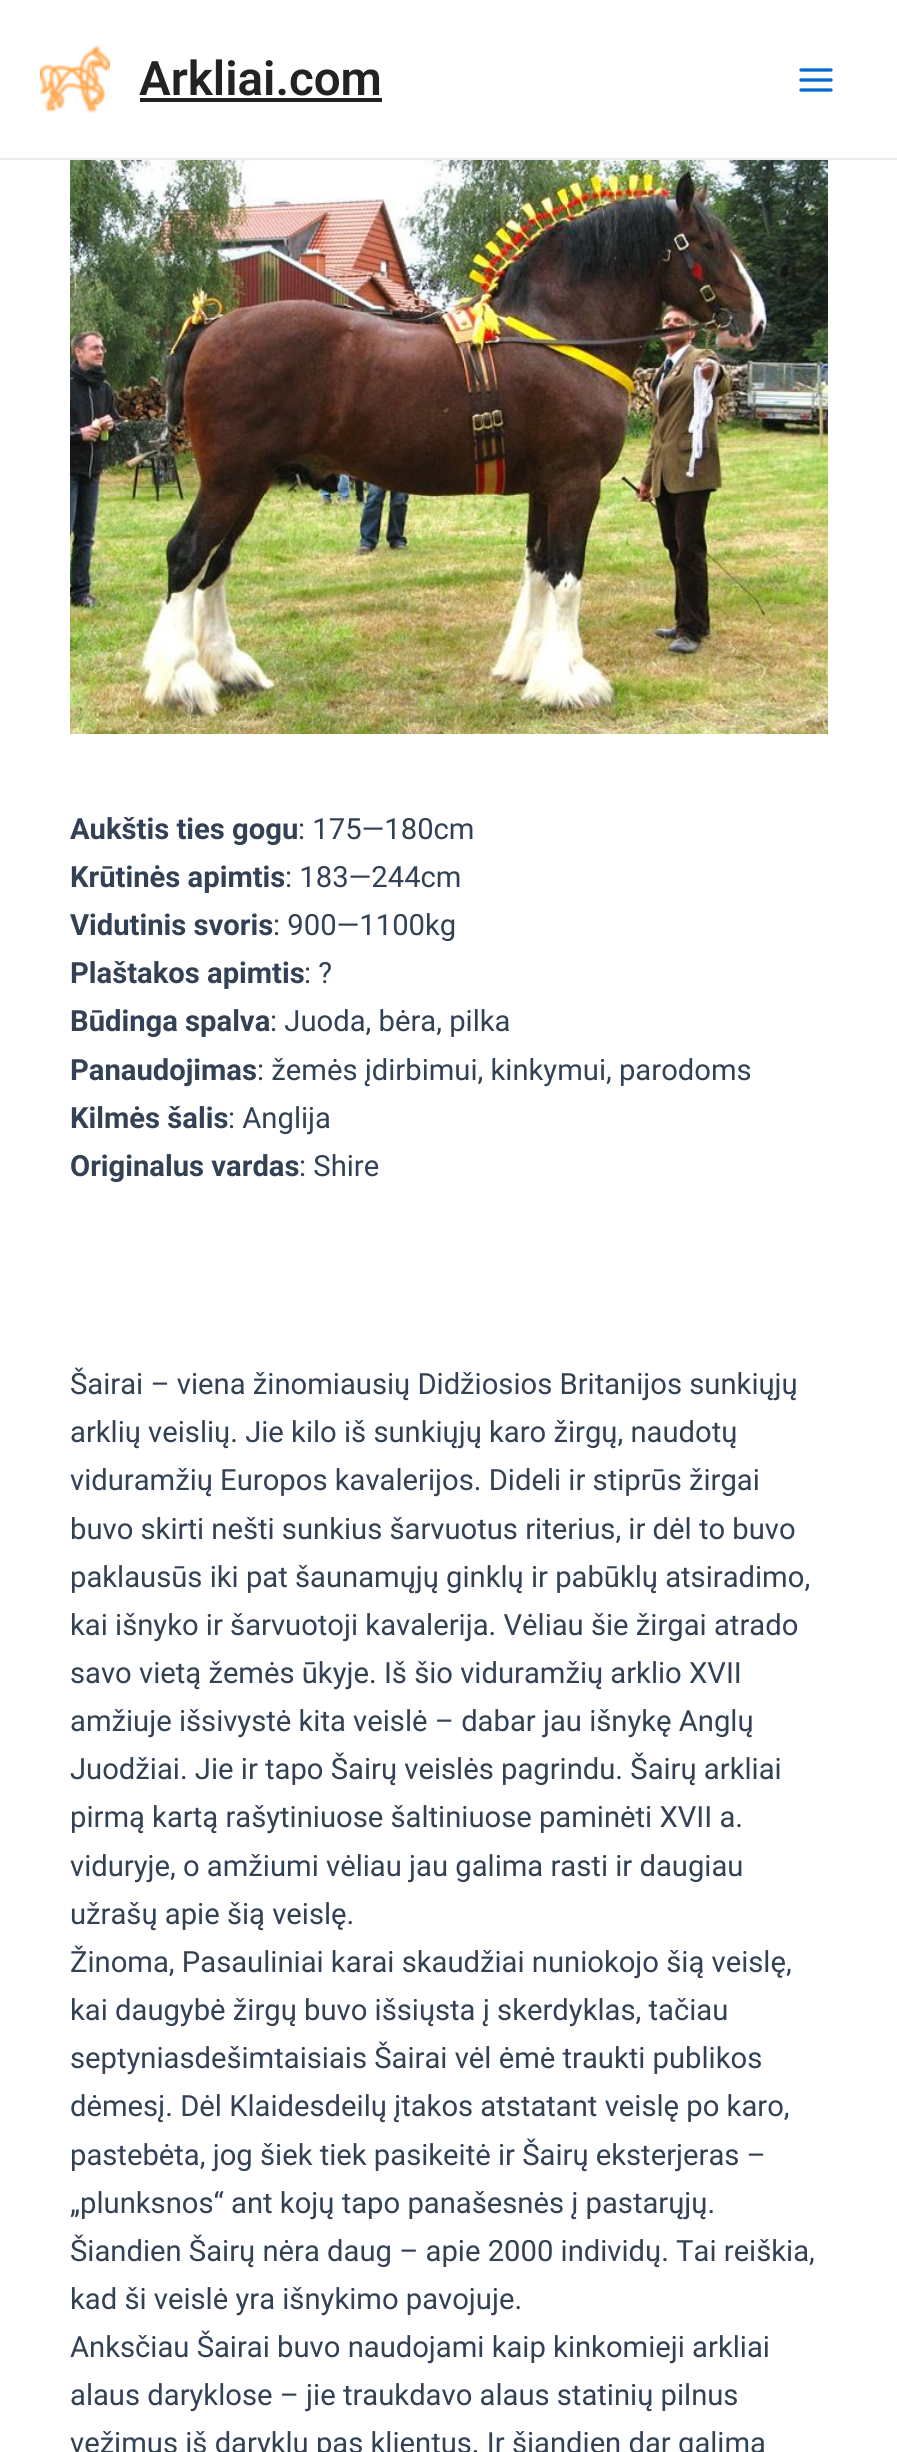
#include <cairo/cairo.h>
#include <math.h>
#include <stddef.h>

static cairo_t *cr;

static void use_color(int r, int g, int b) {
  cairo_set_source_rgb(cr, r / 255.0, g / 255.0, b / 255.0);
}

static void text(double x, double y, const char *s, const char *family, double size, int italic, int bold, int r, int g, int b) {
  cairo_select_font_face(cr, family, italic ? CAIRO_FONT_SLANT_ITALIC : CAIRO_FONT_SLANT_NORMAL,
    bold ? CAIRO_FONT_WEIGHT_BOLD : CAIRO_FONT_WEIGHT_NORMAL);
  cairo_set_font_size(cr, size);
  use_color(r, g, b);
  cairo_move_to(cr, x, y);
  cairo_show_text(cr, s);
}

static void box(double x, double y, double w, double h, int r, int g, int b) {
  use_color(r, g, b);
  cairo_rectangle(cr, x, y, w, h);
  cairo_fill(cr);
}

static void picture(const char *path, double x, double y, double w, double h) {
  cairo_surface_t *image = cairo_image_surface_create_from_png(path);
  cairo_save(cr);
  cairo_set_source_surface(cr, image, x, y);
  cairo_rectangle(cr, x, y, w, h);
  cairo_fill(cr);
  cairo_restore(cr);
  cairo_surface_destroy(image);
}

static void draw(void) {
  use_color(255, 255, 255);
  cairo_paint(cr);
  box(0, 158, 897, 2, 234, 234, 234);
  picture("img_01.png", 40, 45, 70, 68);
  box(140, 98, 242, 4, 34, 34, 34);
  picture("img_02.png", 799, 68, 34, 24);
  picture("img_03.png", 70, 160, 758, 574);
  text(139, 95, "Arkliai.com", "Roboto SemiBold", 47.5, 0, 0, 34, 34, 34);
  text(70, 839, "Aukštis ties gogu", "Roboto", 29.2, 0, 1, 51, 65, 85);
  text(298, 839, ": 175—180cm", "Roboto", 29.2, 0, 0, 51, 65, 85);
  text(70, 887, "Krūtinės apimtis", "Roboto", 29.2, 0, 1, 51, 65, 85);
  text(285, 887, ": 183—244cm", "Roboto", 29.2, 0, 0, 51, 65, 85);
  text(70, 935, "Vidutinis svoris", "Roboto", 29.2, 0, 1, 51, 65, 85);
  text(273, 935, ": 900—1100kg", "Roboto", 29.2, 0, 0, 51, 65, 85);
  text(70, 983, "Plaštakos apimtis", "Roboto", 29.2, 0, 1, 51, 65, 85);
  text(304, 983, ": ?", "Roboto", 29.2, 0, 0, 51, 65, 85);
  text(70, 1031, "Būdinga spalva", "Roboto", 29.2, 0, 1, 51, 65, 85);
  text(270, 1031, ": Juoda, bėra, pilka", "Roboto", 29.2, 0, 0, 51, 65, 85);
  text(70, 1080, "Panaudojimas", "Roboto", 29.2, 0, 1, 51, 65, 85);
  text(257, 1080, ": žemės įdirbimui, kinkymui, parodoms", "Roboto", 29.2, 0, 0, 51, 65, 85);
  text(70, 1128, "Kilmės šalis", "Roboto", 29.2, 0, 1, 51, 65, 85);
  text(228, 1128, ": Anglija", "Roboto", 29.2, 0, 0, 51, 65, 85);
  text(70, 1176, "Originalus vardas", "Roboto", 29.2, 0, 1, 51, 65, 85);
  text(299, 1176, ": Shire", "Roboto", 29.2, 0, 0, 51, 65, 85);
  text(70, 1394, "Šairai – viena žinomiausių Didžiosios Britanijos sunkiųjų", "Roboto", 29.2, 0, 0, 51, 65, 85);
  text(70, 1442, "arklių veislių. Jie kilo iš sunkiųjų karo žirgų, naudotų", "Roboto", 29.2, 0, 0, 51, 65, 85);
  text(70, 1490, "viduramžių Europos kavalerijos. Dideli ir stiprūs žirgai", "Roboto", 29.2, 0, 0, 51, 65, 85);
  text(70, 1539, "buvo skirti nešti sunkius šarvuotus riterius, ir dėl to buvo", "Roboto", 29.2, 0, 0, 51, 65, 85);
  text(70, 1587, "paklausūs iki pat šaunamųjų ginklų ir pabūklų atsiradimo,", "Roboto", 29.2, 0, 0, 51, 65, 85);
  text(70, 1635, "kai išnyko ir šarvuotoji kavalerija. Vėliau šie žirgai atrado", "Roboto", 29.2, 0, 0, 51, 65, 85);
  text(70, 1683, "savo vietą žemės ūkyje. Iš šio viduramžių arklio XVII", "Roboto", 29.2, 0, 0, 51, 65, 85);
  text(70, 1731, "amžiuje išsivystė kita veislė – dabar jau išnykę Anglų", "Roboto", 29.2, 0, 0, 51, 65, 85);
  text(70, 1779, "Juodžiai. Jie ir tapo Šairų veislės pagrindu. Šairų arkliai", "Roboto", 29.2, 0, 0, 51, 65, 85);
  text(70, 1827, "pirmą kartą rašytiniuose šaltiniuose paminėti XVII a.", "Roboto", 29.2, 0, 0, 51, 65, 85);
  text(70, 1876, "viduryje, o amžiumi vėliau jau galima rasti ir daugiau", "Roboto", 29.2, 0, 0, 51, 65, 85);
  text(70, 1924, "užrašų apie šią veislę.", "Roboto", 29.2, 0, 0, 51, 65, 85);
  text(70, 1972, "Žinoma, Pasauliniai karai skaudžiai nuniokojo šią veislę,", "Roboto", 29.2, 0, 0, 51, 65, 85);
  text(70, 2020, "kai daugybė žirgų buvo išsiųsta į skerdyklas, tačiau", "Roboto", 29.2, 0, 0, 51, 65, 85);
  text(70, 2068, "septyniasdešimtaisiais Šairai vėl ėmė traukti publikos", "Roboto", 29.2, 0, 0, 51, 65, 85);
  text(70, 2116, "dėmesį. Dėl Klaidesdeilų įtakos atstatant veislę po karo,", "Roboto", 29.2, 0, 0, 51, 65, 85);
  text(70, 2165, "pastebėta, jog šiek tiek pasikeitė ir Šairų eksterjeras –", "Roboto", 29.2, 0, 0, 51, 65, 85);
  text(70, 2213, "„plunksnos“ ant kojų tapo panašesnės į pastarųjų.", "Roboto", 29.2, 0, 0, 51, 65, 85);
  text(70, 2261, "Šiandien Šairų nėra daug – apie 2000 individų. Tai reiškia,", "Roboto", 29.2, 0, 0, 51, 65, 85);
  text(70, 2309, "kad ši veislė yra išnykimo pavojuje.", "Roboto", 29.2, 0, 0, 51, 65, 85);
  text(70, 2357, "Anksčiau Šairai buvo naudojami kaip kinkomieji arkliai", "Roboto", 29.2, 0, 0, 51, 65, 85);
  text(70, 2405, "alaus daryklose – jie traukdavo alaus statinių pilnus", "Roboto", 29.2, 0, 0, 51, 65, 85);
  text(70, 2453, "vežimus iš daryklų pas klientus. Ir šiandien dar galima", "Roboto", 29.2, 0, 0, 51, 65, 85);
}

int main(void) {
  cairo_surface_t *surface = cairo_image_surface_create(CAIRO_FORMAT_RGB24, 897, 2452);
  cr = cairo_create(surface);
  cairo_font_options_t *options = cairo_font_options_create();
  cairo_font_options_set_hint_metrics(options, CAIRO_HINT_METRICS_OFF);
  cairo_font_options_set_hint_style(options, CAIRO_HINT_STYLE_NONE);
  cairo_set_font_options(cr, options);
  cairo_set_miter_limit(cr, 4);
  draw();
  cairo_surface_write_to_png(surface, "out.png");
  cairo_font_options_destroy(options);
  cairo_destroy(cr);
  cairo_surface_destroy(surface);
  return 0;
}
